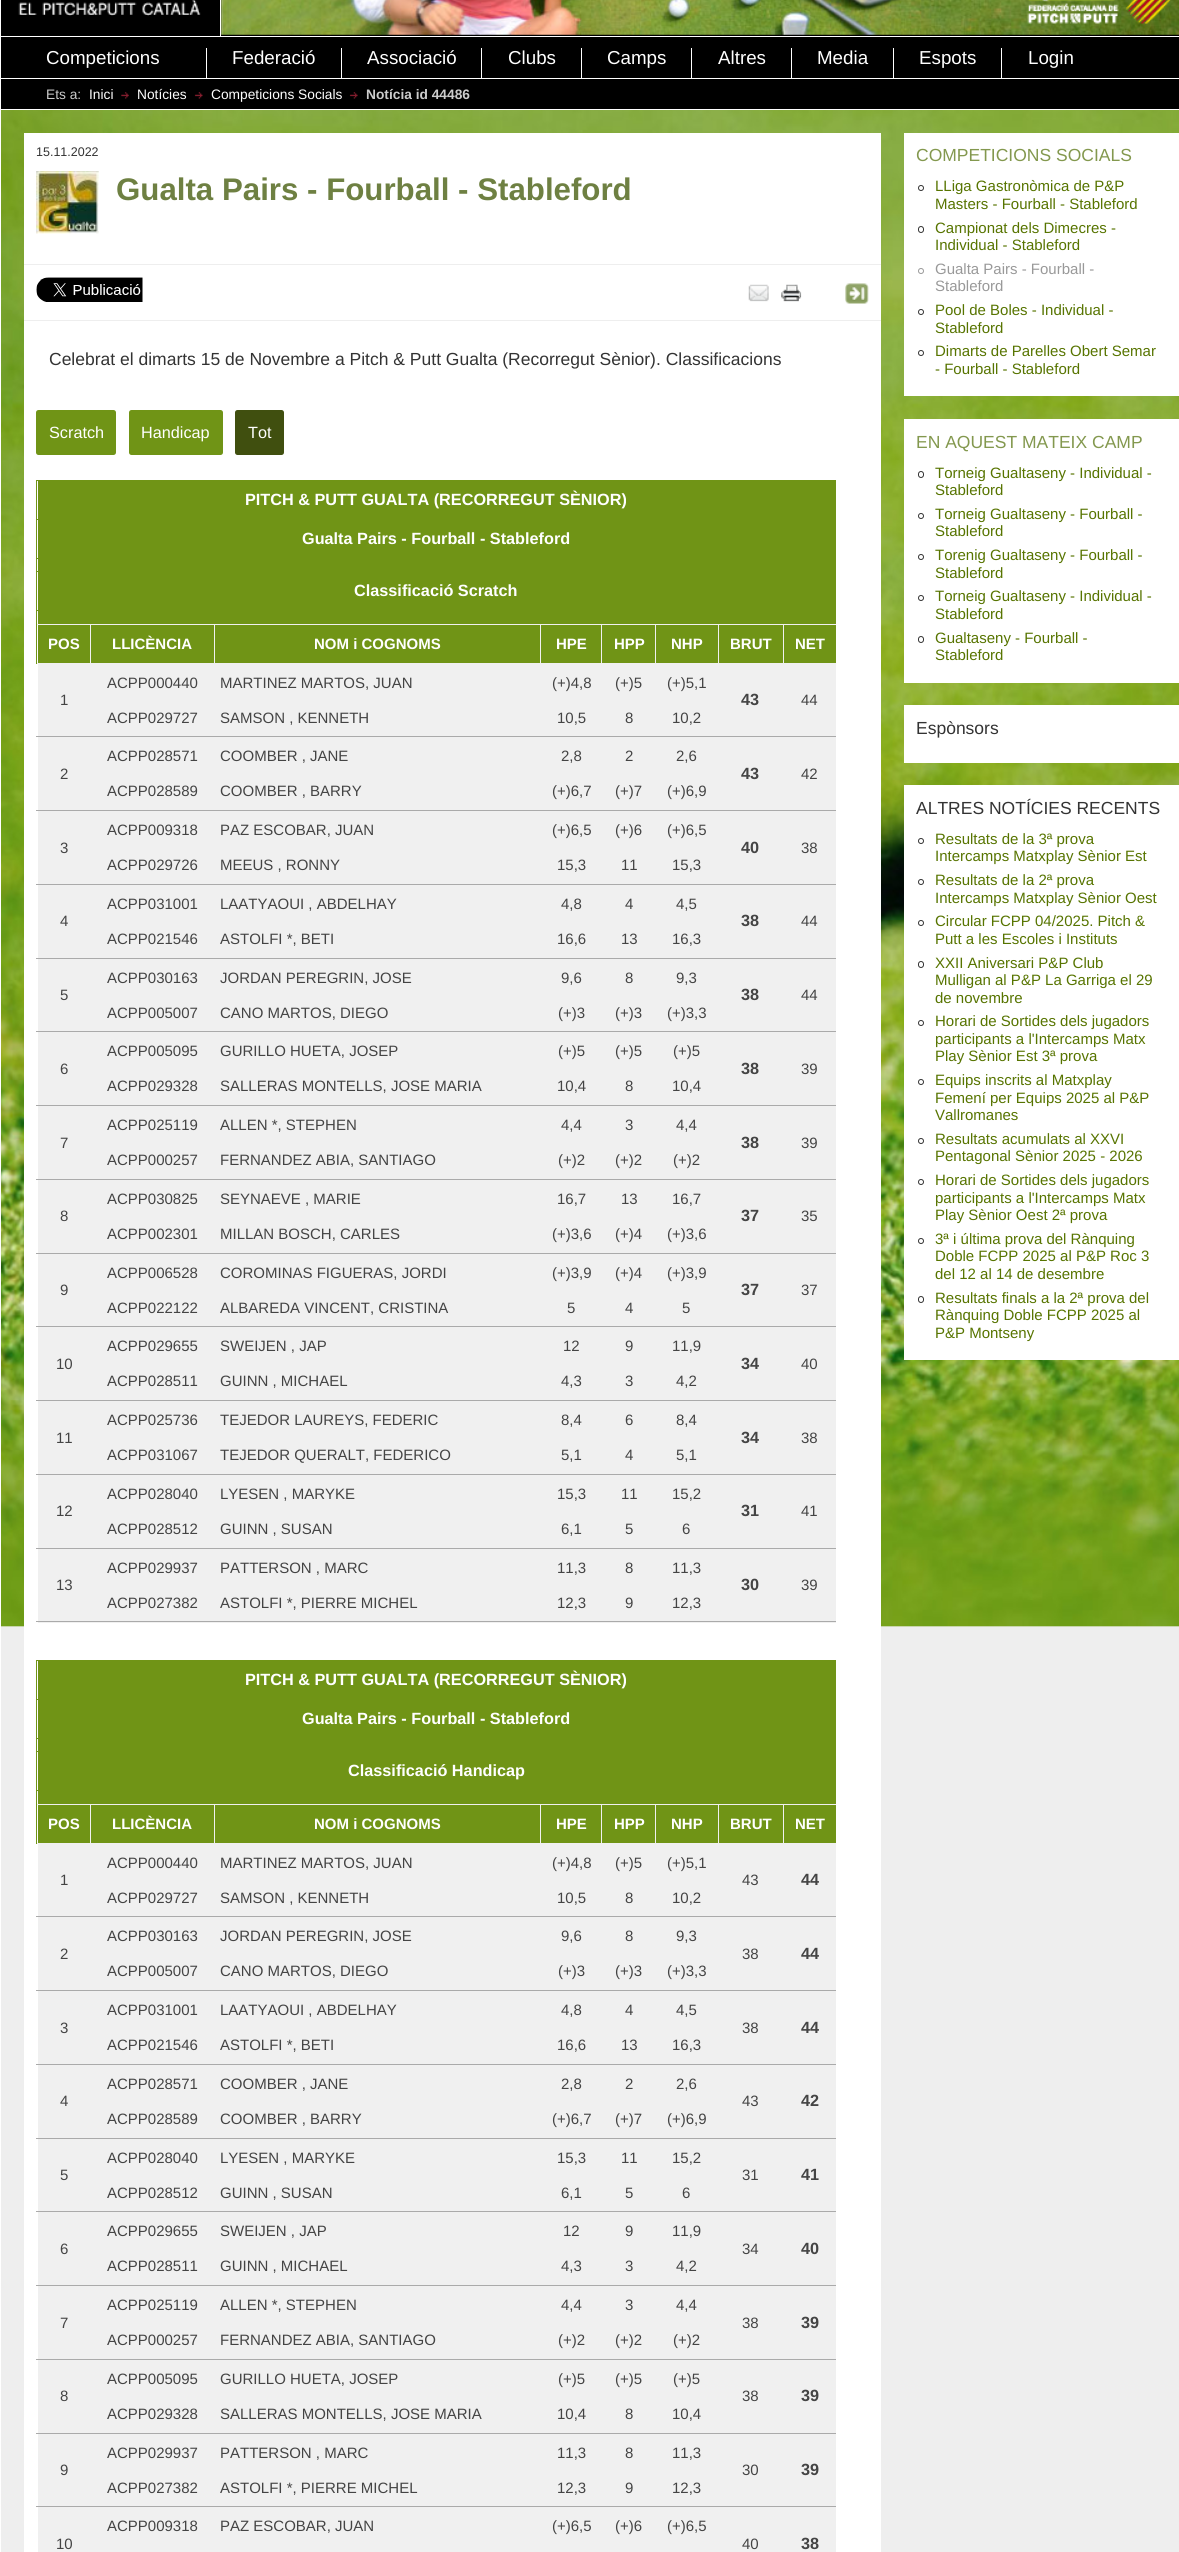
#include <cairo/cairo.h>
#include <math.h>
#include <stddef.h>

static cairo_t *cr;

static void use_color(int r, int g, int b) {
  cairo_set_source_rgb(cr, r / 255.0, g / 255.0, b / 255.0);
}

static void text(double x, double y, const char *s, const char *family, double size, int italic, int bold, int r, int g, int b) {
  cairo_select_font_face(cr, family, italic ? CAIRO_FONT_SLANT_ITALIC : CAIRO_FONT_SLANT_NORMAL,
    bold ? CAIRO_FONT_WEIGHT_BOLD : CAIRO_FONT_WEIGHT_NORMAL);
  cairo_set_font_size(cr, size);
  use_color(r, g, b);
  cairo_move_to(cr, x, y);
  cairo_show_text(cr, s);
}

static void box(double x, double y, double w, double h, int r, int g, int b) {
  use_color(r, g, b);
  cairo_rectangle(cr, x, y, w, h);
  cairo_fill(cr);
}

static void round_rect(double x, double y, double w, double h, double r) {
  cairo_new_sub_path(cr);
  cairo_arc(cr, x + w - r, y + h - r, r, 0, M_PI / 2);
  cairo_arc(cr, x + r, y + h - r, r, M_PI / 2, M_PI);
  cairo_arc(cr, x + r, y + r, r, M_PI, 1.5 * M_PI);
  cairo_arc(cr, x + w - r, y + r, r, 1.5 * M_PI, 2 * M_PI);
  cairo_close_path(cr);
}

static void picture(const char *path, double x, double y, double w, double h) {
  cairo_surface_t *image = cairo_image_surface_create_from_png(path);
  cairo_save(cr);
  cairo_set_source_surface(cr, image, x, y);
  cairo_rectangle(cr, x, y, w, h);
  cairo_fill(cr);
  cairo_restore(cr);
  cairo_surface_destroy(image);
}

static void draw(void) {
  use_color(238, 238, 238);
  cairo_paint(cr);
  picture("img_01.png", 1, 110, 1178, 1517);
  box(0, 0, 1, 36, 255, 255, 255);
  box(1, 0, 1178, 36, 0, 0, 0);
  picture("img_02.png", 221, 0, 958, 35);
  picture("img_03.png", 18, 0, 183, 16);
  box(220, 0, 1, 36, 255, 255, 255);
  picture("img_04.png", 1027, 0, 144, 24);
  use_color(0, 0, 0);
  cairo_rectangle(cr, 0.5, 36.5, 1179, 42);
  cairo_fill_preserve(cr);
  use_color(255, 255, 255);
  cairo_set_line_width(cr, 1);
  cairo_stroke(cr);
  box(206, 48, 1, 30, 255, 255, 255);
  box(341, 48, 1, 30, 255, 255, 255);
  box(481, 48, 1, 30, 255, 255, 255);
  box(581, 48, 1, 30, 255, 255, 255);
  box(691, 48, 1, 30, 255, 255, 255);
  box(791, 48, 1, 30, 255, 255, 255);
  box(893, 48, 1, 30, 255, 255, 255);
  box(1001, 48, 1, 30, 255, 255, 255);
  box(0, 79, 1, 2473, 255, 255, 255);
  box(1, 79, 1178, 30, 0, 0, 0);
  box(1, 109, 1178, 1, 255, 255, 255);
  picture("img_05.png", 121, 92, 8, 7);
  picture("img_06.png", 194, 92, 9, 7);
  picture("img_07.png", 349, 92, 9, 7);
  box(24, 133, 857, 131, 255, 255, 255);
  picture("img_08.png", 36, 171, 63, 63);
  box(24, 265, 857, 55, 255, 255, 255);
  box(24, 264, 857, 1, 238, 238, 238);
  box(24, 320, 857, 1, 238, 238, 238);
  picture("img_09.png", 36, 277, 107, 25);
  picture("img_10.png", 748, 284, 21, 18);
  picture("img_11.png", 781, 284, 21, 18);
  picture("img_12.png", 845, 283, 24, 21);
  box(24, 321, 857, 2231, 255, 255, 255);
  use_color(112, 148, 22);
  round_rect(36, 410, 80, 45, 2.5);
  cairo_fill(cr);
  round_rect(129, 410, 94, 45, 2.5);
  cairo_fill(cr);
  use_color(64, 79, 15);
  round_rect(235, 410, 49, 45, 2.5);
  cairo_fill(cr);
  box(38, 481, 798, 38, 112, 148, 22);
  box(36, 480, 800, 1, 112, 148, 22);
  box(36, 519, 800, 1, 112, 148, 22);
  box(36, 558, 800, 1, 112, 148, 22);
  box(36, 571, 2, 1, 112, 148, 22);
  box(36, 610, 800, 1, 112, 148, 22);
  box(835, 624, 1, 40, 112, 148, 22);
  box(783, 663, 53, 1, 240, 240, 240);
  box(783, 624, 1, 40, 240, 240, 240);
  box(718, 663, 66, 1, 240, 240, 240);
  box(718, 624, 1, 40, 240, 240, 240);
  box(655, 663, 64, 1, 240, 240, 240);
  box(655, 624, 1, 40, 240, 240, 240);
  box(601, 663, 55, 1, 240, 240, 240);
  box(541, 625, 114, 38, 112, 148, 22);
  box(601, 624, 1, 40, 240, 240, 240);
  box(540, 663, 63, 1, 240, 240, 240);
  box(540, 624, 1, 40, 240, 240, 240);
  box(214, 663, 327, 1, 240, 240, 240);
  box(214, 624, 1, 40, 240, 240, 240);
  box(90, 663, 125, 1, 240, 240, 240);
  box(90, 624, 1, 40, 240, 240, 240);
  box(36, 663, 55, 1, 240, 240, 240);
  box(36, 624, 1, 40, 112, 148, 22);
  box(36, 624, 800, 1, 240, 240, 240);
  box(36, 610, 1, 15, 112, 148, 22);
  box(36, 571, 1, 40, 112, 148, 22);
  box(36, 558, 1, 15, 112, 148, 22);
  box(36, 519, 1, 40, 112, 148, 22);
  box(36, 480, 1, 40, 112, 148, 22);
  box(38, 520, 798, 38, 112, 148, 22);
  box(38, 559, 798, 51, 112, 148, 22);
  box(38, 611, 798, 13, 112, 148, 22);
  box(38, 625, 52, 38, 112, 148, 22);
  box(91, 625, 123, 38, 112, 148, 22);
  box(215, 625, 325, 38, 112, 148, 22);
  box(656, 625, 62, 38, 112, 148, 22);
  box(719, 625, 64, 38, 112, 148, 22);
  box(784, 625, 51, 38, 112, 148, 22);
  box(91, 664, 627, 37, 240, 240, 240);
  box(38, 664, 53, 146, 240, 240, 240);
  box(718, 664, 118, 74, 240, 240, 240);
  box(91, 701, 627, 37, 240, 240, 240);
  box(36, 736, 800, 1, 170, 170, 170);
  box(91, 738, 627, 37, 240, 240, 240);
  box(718, 738, 118, 72, 240, 240, 240);
  box(36, 810, 800, 1, 170, 170, 170);
  box(91, 775, 627, 35, 240, 240, 240);
  box(91, 811, 627, 38, 240, 240, 240);
  box(38, 811, 53, 73, 240, 240, 240);
  box(718, 811, 118, 73, 240, 240, 240);
  box(36, 884, 800, 1, 170, 170, 170);
  box(91, 849, 627, 35, 240, 240, 240);
  box(91, 885, 627, 38, 240, 240, 240);
  box(38, 885, 53, 73, 240, 240, 240);
  box(718, 885, 118, 73, 240, 240, 240);
  box(36, 958, 800, 1, 170, 170, 170);
  box(91, 923, 627, 35, 240, 240, 240);
  box(91, 959, 627, 37, 240, 240, 240);
  box(38, 959, 53, 146, 240, 240, 240);
  box(718, 959, 118, 74, 240, 240, 240);
  box(91, 996, 627, 37, 240, 240, 240);
  box(36, 1031, 800, 1, 170, 170, 170);
  box(91, 1033, 627, 37, 240, 240, 240);
  box(718, 1033, 118, 72, 240, 240, 240);
  box(36, 1105, 800, 1, 170, 170, 170);
  box(91, 1070, 627, 35, 240, 240, 240);
  box(91, 1106, 627, 38, 240, 240, 240);
  box(38, 1106, 53, 73, 240, 240, 240);
  box(718, 1106, 118, 73, 240, 240, 240);
  box(36, 1179, 800, 1, 170, 170, 170);
  box(91, 1144, 627, 35, 240, 240, 240);
  box(91, 1180, 627, 38, 240, 240, 240);
  box(38, 1180, 53, 73, 240, 240, 240);
  box(718, 1180, 118, 73, 240, 240, 240);
  box(36, 1253, 800, 1, 170, 170, 170);
  box(91, 1218, 627, 35, 240, 240, 240);
  box(91, 1254, 627, 37, 240, 240, 240);
  box(38, 1254, 53, 146, 240, 240, 240);
  box(718, 1254, 118, 74, 240, 240, 240);
  box(91, 1291, 627, 37, 240, 240, 240);
  box(36, 1326, 800, 1, 170, 170, 170);
  box(91, 1328, 627, 37, 240, 240, 240);
  box(718, 1328, 118, 72, 240, 240, 240);
  box(36, 1400, 800, 1, 170, 170, 170);
  box(91, 1365, 627, 35, 240, 240, 240);
  box(91, 1401, 627, 38, 240, 240, 240);
  box(38, 1401, 53, 73, 240, 240, 240);
  box(718, 1401, 118, 73, 240, 240, 240);
  box(36, 1474, 800, 1, 170, 170, 170);
  box(91, 1439, 627, 35, 240, 240, 240);
  box(91, 1475, 627, 38, 240, 240, 240);
  box(38, 1475, 53, 73, 240, 240, 240);
  box(718, 1475, 118, 73, 240, 240, 240);
  box(36, 1548, 800, 1, 170, 170, 170);
  box(91, 1513, 627, 35, 240, 240, 240);
  box(91, 1549, 627, 37, 240, 240, 240);
  box(38, 1549, 53, 74, 240, 240, 240);
  box(718, 1549, 118, 74, 240, 240, 240);
  box(91, 1586, 627, 37, 240, 240, 240);
  box(36, 1621, 800, 1, 170, 170, 170);
  box(38, 1661, 798, 38, 112, 148, 22);
  box(36, 1660, 800, 1, 112, 148, 22);
  box(36, 1699, 800, 1, 112, 148, 22);
  box(36, 1738, 800, 1, 112, 148, 22);
  box(36, 1751, 2, 1, 112, 148, 22);
  box(36, 1790, 800, 1, 112, 148, 22);
  box(835, 1804, 1, 40, 112, 148, 22);
  box(783, 1843, 53, 1, 240, 240, 240);
  box(783, 1804, 1, 40, 240, 240, 240);
  box(718, 1843, 66, 1, 240, 240, 240);
  box(718, 1804, 1, 40, 240, 240, 240);
  box(655, 1843, 64, 1, 240, 240, 240);
  box(655, 1804, 1, 40, 240, 240, 240);
  box(601, 1843, 55, 1, 240, 240, 240);
  box(541, 1805, 114, 38, 112, 148, 22);
  box(601, 1804, 1, 40, 240, 240, 240);
  box(540, 1843, 63, 1, 240, 240, 240);
  box(540, 1804, 1, 40, 240, 240, 240);
  box(214, 1843, 327, 1, 240, 240, 240);
  box(214, 1804, 1, 40, 240, 240, 240);
  box(90, 1843, 125, 1, 240, 240, 240);
  box(90, 1804, 1, 40, 240, 240, 240);
  box(36, 1843, 55, 1, 240, 240, 240);
  box(36, 1804, 1, 40, 112, 148, 22);
  box(36, 1804, 800, 1, 240, 240, 240);
  box(36, 1790, 1, 15, 112, 148, 22);
  box(36, 1751, 1, 40, 112, 148, 22);
  box(36, 1738, 1, 15, 112, 148, 22);
  box(36, 1699, 1, 40, 112, 148, 22);
  box(36, 1660, 1, 40, 112, 148, 22);
  box(38, 1700, 798, 38, 112, 148, 22);
  box(38, 1739, 798, 51, 112, 148, 22);
  box(38, 1791, 798, 13, 112, 148, 22);
  box(38, 1805, 52, 38, 112, 148, 22);
  box(91, 1805, 123, 38, 112, 148, 22);
  box(215, 1805, 325, 38, 112, 148, 22);
  box(656, 1805, 62, 38, 112, 148, 22);
  box(719, 1805, 64, 38, 112, 148, 22);
  box(784, 1805, 51, 38, 112, 148, 22);
  box(91, 1844, 627, 37, 240, 240, 240);
  box(38, 1844, 53, 146, 240, 240, 240);
  box(718, 1844, 118, 74, 240, 240, 240);
  box(91, 1881, 627, 37, 240, 240, 240);
  box(36, 1916, 800, 1, 170, 170, 170);
  box(91, 1918, 627, 37, 240, 240, 240);
  box(718, 1918, 118, 72, 240, 240, 240);
  box(36, 1990, 800, 1, 170, 170, 170);
  box(91, 1955, 627, 35, 240, 240, 240);
  box(91, 1991, 627, 38, 240, 240, 240);
  box(38, 1991, 53, 73, 240, 240, 240);
  box(718, 1991, 118, 73, 240, 240, 240);
  box(36, 2064, 800, 1, 170, 170, 170);
  box(91, 2029, 627, 35, 240, 240, 240);
  box(91, 2065, 627, 38, 240, 240, 240);
  box(38, 2065, 53, 73, 240, 240, 240);
  box(718, 2065, 118, 73, 240, 240, 240);
  box(36, 2138, 800, 1, 170, 170, 170);
  box(91, 2103, 627, 35, 240, 240, 240);
  box(91, 2139, 627, 37, 240, 240, 240);
  box(38, 2139, 53, 146, 240, 240, 240);
  box(718, 2139, 118, 74, 240, 240, 240);
  box(91, 2176, 627, 37, 240, 240, 240);
  box(36, 2211, 800, 1, 170, 170, 170);
  box(91, 2213, 627, 37, 240, 240, 240);
  box(718, 2213, 118, 72, 240, 240, 240);
  box(36, 2285, 800, 1, 170, 170, 170);
  box(91, 2250, 627, 35, 240, 240, 240);
  box(91, 2286, 627, 38, 240, 240, 240);
  box(38, 2286, 53, 73, 240, 240, 240);
  box(718, 2286, 118, 73, 240, 240, 240);
  box(36, 2359, 800, 1, 170, 170, 170);
  box(91, 2324, 627, 35, 240, 240, 240);
  box(91, 2360, 627, 38, 240, 240, 240);
  box(38, 2360, 53, 73, 240, 240, 240);
  box(718, 2360, 118, 73, 240, 240, 240);
  box(36, 2433, 800, 1, 170, 170, 170);
  box(91, 2398, 627, 35, 240, 240, 240);
  box(91, 2434, 627, 37, 240, 240, 240);
  box(38, 2434, 53, 118, 240, 240, 240);
  box(718, 2434, 118, 74, 240, 240, 240);
  box(91, 2471, 627, 37, 240, 240, 240);
  box(36, 2506, 800, 1, 170, 170, 170);
  box(91, 2508, 627, 37, 240, 240, 240);
  box(718, 2508, 118, 44, 240, 240, 240);
  box(91, 2545, 627, 7, 240, 240, 240);
  box(904, 133, 275, 263, 255, 255, 255);
  cairo_arc(cr, 921, 188, 2.5, 0, 2 * M_PI);
  use_color(51, 51, 51);
  cairo_stroke(cr);
  round_rect(918.5, 226.5, 5, 6, 2.5);
  cairo_stroke(cr);
  cairo_arc(cr, 921, 271, 2.5, 0, 2 * M_PI);
  use_color(153, 153, 153);
  cairo_stroke(cr);
  cairo_arc(cr, 921, 312, 2.5, 0, 2 * M_PI);
  use_color(51, 51, 51);
  cairo_stroke(cr);
  cairo_arc(cr, 921, 353, 2.5, 0, 2 * M_PI);
  cairo_stroke(cr);
  box(904, 419, 275, 264, 255, 255, 255);
  round_rect(918.5, 471.5, 5, 6, 2.5);
  use_color(51, 51, 51);
  cairo_stroke(cr);
  cairo_arc(cr, 921, 516, 2.5, 0, 2 * M_PI);
  cairo_stroke(cr);
  cairo_arc(cr, 921, 557, 2.5, 0, 2 * M_PI);
  cairo_stroke(cr);
  cairo_arc(cr, 921, 598, 2.5, 0, 2 * M_PI);
  cairo_stroke(cr);
  round_rect(918.5, 636.5, 5, 6, 2.5);
  cairo_stroke(cr);
  box(904, 705, 275, 58, 255, 255, 255);
  box(904, 785, 275, 575, 255, 255, 255);
  cairo_arc(cr, 921, 841, 2.5, 0, 2 * M_PI);
  use_color(51, 51, 51);
  cairo_stroke(cr);
  cairo_arc(cr, 921, 882, 2.5, 0, 2 * M_PI);
  cairo_stroke(cr);
  cairo_arc(cr, 921, 923, 2.5, 0, 2 * M_PI);
  cairo_stroke(cr);
  round_rect(918.5, 961.5, 5, 6, 2.5);
  cairo_stroke(cr);
  cairo_arc(cr, 921, 1023, 2.5, 0, 2 * M_PI);
  cairo_stroke(cr);
  cairo_arc(cr, 921, 1082, 2.5, 0, 2 * M_PI);
  cairo_stroke(cr);
  cairo_arc(cr, 921, 1141, 2.5, 0, 2 * M_PI);
  cairo_stroke(cr);
  cairo_arc(cr, 921, 1182, 2.5, 0, 2 * M_PI);
  cairo_stroke(cr);
  cairo_arc(cr, 921, 1241, 2.5, 0, 2 * M_PI);
  cairo_stroke(cr);
  round_rect(918.5, 1296.5, 5, 6, 2.5);
  cairo_stroke(cr);
  text(46, 64, "Competicions", "Liberation Sans", 18.75, 0, 0, 255, 255, 255);
  text(232, 64, "Federació", "Liberation Sans", 18.75, 0, 0, 255, 255, 255);
  text(367, 64, "Associació", "Liberation Sans", 18.75, 0, 0, 255, 255, 255);
  text(508, 64, "Clubs", "Liberation Sans", 18.75, 0, 0, 255, 255, 255);
  text(607, 64, "Camps", "Liberation Sans", 18.75, 0, 0, 255, 255, 255);
  text(718, 64, "Altres", "Liberation Sans", 18.75, 0, 0, 255, 255, 255);
  text(817, 64, "Media", "Liberation Sans", 18.75, 0, 0, 255, 255, 255);
  text(919, 64, "Espots", "Liberation Sans", 18.75, 0, 0, 255, 255, 255);
  text(1028, 64, "Login", "Liberation Sans", 18.75, 0, 0, 255, 255, 255);
  text(46, 99, "Ets a:", "Liberation Sans", 13.75, 0, 0, 204, 204, 204);
  text(89, 99, "Inici", "Liberation Sans", 13.75, 0, 0, 255, 255, 255);
  text(137, 99, "Notícies", "Liberation Sans", 13.75, 0, 0, 255, 255, 255);
  text(211, 99, "Competicions Socials", "Liberation Sans", 13.75, 0, 0, 255, 255, 255);
  text(366, 99, "Notícia id 44486", "Liberation Sans", 13.75, 0, 1, 204, 204, 204);
  text(36, 156, "15.11.2022", "Liberation Sans", 12.5, 0, 0, 51, 51, 51);
  text(116, 200, "Gualta Pairs - Fourball - Stableford", "Liberation Sans", 31.25, 0, 1, 110, 128, 66);
  text(49, 365, "Celebrat el dimarts 15 de Novembre a Pitch & Putt Gualta (Recorregut Sènior). Classificacions", "Liberation Sans", 17.5, 0, 0, 51, 51, 51);
  text(49, 438, "Scratch", "Liberation Sans", 16.25, 0, 0, 255, 255, 255);
  text(141, 438, "Handicap", "Liberation Sans", 16.25, 0, 0, 255, 255, 255);
  text(248, 438, "Tot", "Liberation Sans", 16.25, 0, 0, 255, 255, 255);
  text(245, 505, "PITCH & PUTT GUALTA (RECORREGUT SÈNIOR)", "Liberation Sans", 16.25, 0, 1, 255, 255, 255);
  text(302, 544, "Gualta Pairs - Fourball - Stableford", "Liberation Sans", 16.25, 0, 1, 255, 255, 255);
  text(354, 596, "Classificació Scratch", "Liberation Sans", 16.25, 0, 1, 255, 255, 255);
  text(48, 649, "POS", "Liberation Sans", 15, 0, 1, 255, 255, 255);
  text(112, 649, "LLICÈNCIA", "Liberation Sans", 15, 0, 1, 255, 255, 255);
  text(314, 649, "NOM i COGNOMS", "Liberation Sans", 15, 0, 1, 255, 255, 255);
  text(556, 649, "HPE", "Liberation Sans", 15, 0, 1, 255, 255, 255);
  text(614, 649, "HPP", "Liberation Sans", 15, 0, 1, 255, 255, 255);
  text(671, 649, "NHP", "Liberation Sans", 15, 0, 1, 255, 255, 255);
  text(730, 649, "BRUT", "Liberation Sans", 15, 0, 1, 255, 255, 255);
  text(795, 649, "NET", "Liberation Sans", 15, 0, 1, 255, 255, 255);
  text(107, 688, "ACPP000440", "Liberation Sans", 15, 0, 0, 68, 68, 68);
  text(220, 688, "MARTINEZ MARTOS, JUAN", "Liberation Sans", 15, 0, 0, 68, 68, 68);
  text(552, 688, "(+)4,8", "Liberation Sans", 15, 0, 0, 68, 68, 68);
  text(615, 688, "(+)5", "Liberation Sans", 15, 0, 0, 68, 68, 68);
  text(667, 688, "(+)5,1", "Liberation Sans", 15, 0, 0, 68, 68, 68);
  text(60, 705, "1", "Liberation Sans", 15, 0, 0, 68, 68, 68);
  text(741, 705, "43", "Liberation Sans", 16.25, 0, 1, 68, 68, 68);
  text(801, 705, "44", "Liberation Sans", 15, 0, 0, 68, 68, 68);
  text(107, 723, "ACPP029727", "Liberation Sans", 15, 0, 0, 68, 68, 68);
  text(220, 723, "SAMSON , KENNETH", "Liberation Sans", 15, 0, 0, 68, 68, 68);
  text(557, 723, "10,5", "Liberation Sans", 15, 0, 0, 68, 68, 68);
  text(625, 723, "8", "Liberation Sans", 15, 0, 0, 68, 68, 68);
  text(672, 723, "10,2", "Liberation Sans", 15, 0, 0, 68, 68, 68);
  text(107, 761, "ACPP028571", "Liberation Sans", 15, 0, 0, 68, 68, 68);
  text(220, 761, "COOMBER , JANE", "Liberation Sans", 15, 0, 0, 68, 68, 68);
  text(561, 761, "2,8", "Liberation Sans", 15, 0, 0, 68, 68, 68);
  text(625, 761, "2", "Liberation Sans", 15, 0, 0, 68, 68, 68);
  text(676, 761, "2,6", "Liberation Sans", 15, 0, 0, 68, 68, 68);
  text(60, 779, "2", "Liberation Sans", 15, 0, 0, 68, 68, 68);
  text(741, 779, "43", "Liberation Sans", 16.25, 0, 1, 68, 68, 68);
  text(801, 779, "42", "Liberation Sans", 15, 0, 0, 68, 68, 68);
  text(107, 796, "ACPP028589", "Liberation Sans", 15, 0, 0, 68, 68, 68);
  text(220, 796, "COOMBER , BARRY", "Liberation Sans", 15, 0, 0, 68, 68, 68);
  text(552, 796, "(+)6,7", "Liberation Sans", 15, 0, 0, 68, 68, 68);
  text(615, 796, "(+)7", "Liberation Sans", 15, 0, 0, 68, 68, 68);
  text(667, 796, "(+)6,9", "Liberation Sans", 15, 0, 0, 68, 68, 68);
  text(107, 835, "ACPP009318", "Liberation Sans", 15, 0, 0, 68, 68, 68);
  text(220, 835, "PAZ ESCOBAR, JUAN", "Liberation Sans", 15, 0, 0, 68, 68, 68);
  text(552, 835, "(+)6,5", "Liberation Sans", 15, 0, 0, 68, 68, 68);
  text(615, 835, "(+)6", "Liberation Sans", 15, 0, 0, 68, 68, 68);
  text(667, 835, "(+)6,5", "Liberation Sans", 15, 0, 0, 68, 68, 68);
  text(60, 853, "3", "Liberation Sans", 15, 0, 0, 68, 68, 68);
  text(741, 853, "40", "Liberation Sans", 16.25, 0, 1, 68, 68, 68);
  text(801, 853, "38", "Liberation Sans", 15, 0, 0, 68, 68, 68);
  text(107, 870, "ACPP029726", "Liberation Sans", 15, 0, 0, 68, 68, 68);
  text(220, 870, "MEEUS , RONNY", "Liberation Sans", 15, 0, 0, 68, 68, 68);
  text(557, 870, "15,3", "Liberation Sans", 15, 0, 0, 68, 68, 68);
  text(621, 870, "11", "Liberation Sans", 15, 0, 0, 68, 68, 68);
  text(672, 870, "15,3", "Liberation Sans", 15, 0, 0, 68, 68, 68);
  text(107, 909, "ACPP031001", "Liberation Sans", 15, 0, 0, 68, 68, 68);
  text(220, 909, "LAATYAOUI , ABDELHAY", "Liberation Sans", 15, 0, 0, 68, 68, 68);
  text(561, 909, "4,8", "Liberation Sans", 15, 0, 0, 68, 68, 68);
  text(625, 909, "4", "Liberation Sans", 15, 0, 0, 68, 68, 68);
  text(676, 909, "4,5", "Liberation Sans", 15, 0, 0, 68, 68, 68);
  text(60, 926, "4", "Liberation Sans", 15, 0, 0, 68, 68, 68);
  text(741, 926, "38", "Liberation Sans", 16.25, 0, 1, 68, 68, 68);
  text(801, 926, "44", "Liberation Sans", 15, 0, 0, 68, 68, 68);
  text(107, 944, "ACPP021546", "Liberation Sans", 15, 0, 0, 68, 68, 68);
  text(220, 944, "ASTOLFI *, BETI", "Liberation Sans", 15, 0, 0, 68, 68, 68);
  text(557, 944, "16,6", "Liberation Sans", 15, 0, 0, 68, 68, 68);
  text(621, 944, "13", "Liberation Sans", 15, 0, 0, 68, 68, 68);
  text(672, 944, "16,3", "Liberation Sans", 15, 0, 0, 68, 68, 68);
  text(107, 983, "ACPP030163", "Liberation Sans", 15, 0, 0, 68, 68, 68);
  text(220, 983, "JORDAN PEREGRIN, JOSE", "Liberation Sans", 15, 0, 0, 68, 68, 68);
  text(561, 983, "9,6", "Liberation Sans", 15, 0, 0, 68, 68, 68);
  text(625, 983, "8", "Liberation Sans", 15, 0, 0, 68, 68, 68);
  text(676, 983, "9,3", "Liberation Sans", 15, 0, 0, 68, 68, 68);
  text(60, 1000, "5", "Liberation Sans", 15, 0, 0, 68, 68, 68);
  text(741, 1000, "38", "Liberation Sans", 16.25, 0, 1, 68, 68, 68);
  text(801, 1000, "44", "Liberation Sans", 15, 0, 0, 68, 68, 68);
  text(107, 1018, "ACPP005007", "Liberation Sans", 15, 0, 0, 68, 68, 68);
  text(220, 1018, "CANO MARTOS, DIEGO", "Liberation Sans", 15, 0, 0, 68, 68, 68);
  text(558, 1018, "(+)3", "Liberation Sans", 15, 0, 0, 68, 68, 68);
  text(615, 1018, "(+)3", "Liberation Sans", 15, 0, 0, 68, 68, 68);
  text(667, 1018, "(+)3,3", "Liberation Sans", 15, 0, 0, 68, 68, 68);
  text(107, 1056, "ACPP005095", "Liberation Sans", 15, 0, 0, 68, 68, 68);
  text(220, 1056, "GURILLO HUETA, JOSEP", "Liberation Sans", 15, 0, 0, 68, 68, 68);
  text(558, 1056, "(+)5", "Liberation Sans", 15, 0, 0, 68, 68, 68);
  text(615, 1056, "(+)5", "Liberation Sans", 15, 0, 0, 68, 68, 68);
  text(673, 1056, "(+)5", "Liberation Sans", 15, 0, 0, 68, 68, 68);
  text(60, 1074, "6", "Liberation Sans", 15, 0, 0, 68, 68, 68);
  text(741, 1074, "38", "Liberation Sans", 16.25, 0, 1, 68, 68, 68);
  text(801, 1074, "39", "Liberation Sans", 15, 0, 0, 68, 68, 68);
  text(107, 1091, "ACPP029328", "Liberation Sans", 15, 0, 0, 68, 68, 68);
  text(220, 1091, "SALLERAS MONTELLS, JOSE MARIA", "Liberation Sans", 15, 0, 0, 68, 68, 68);
  text(557, 1091, "10,4", "Liberation Sans", 15, 0, 0, 68, 68, 68);
  text(625, 1091, "8", "Liberation Sans", 15, 0, 0, 68, 68, 68);
  text(672, 1091, "10,4", "Liberation Sans", 15, 0, 0, 68, 68, 68);
  text(107, 1130, "ACPP025119", "Liberation Sans", 15, 0, 0, 68, 68, 68);
  text(220, 1130, "ALLEN *, STEPHEN", "Liberation Sans", 15, 0, 0, 68, 68, 68);
  text(561, 1130, "4,4", "Liberation Sans", 15, 0, 0, 68, 68, 68);
  text(625, 1130, "3", "Liberation Sans", 15, 0, 0, 68, 68, 68);
  text(676, 1130, "4,4", "Liberation Sans", 15, 0, 0, 68, 68, 68);
  text(60, 1148, "7", "Liberation Sans", 15, 0, 0, 68, 68, 68);
  text(741, 1148, "38", "Liberation Sans", 16.25, 0, 1, 68, 68, 68);
  text(801, 1148, "39", "Liberation Sans", 15, 0, 0, 68, 68, 68);
  text(107, 1165, "ACPP000257", "Liberation Sans", 15, 0, 0, 68, 68, 68);
  text(220, 1165, "FERNANDEZ ABIA, SANTIAGO", "Liberation Sans", 15, 0, 0, 68, 68, 68);
  text(558, 1165, "(+)2", "Liberation Sans", 15, 0, 0, 68, 68, 68);
  text(615, 1165, "(+)2", "Liberation Sans", 15, 0, 0, 68, 68, 68);
  text(673, 1165, "(+)2", "Liberation Sans", 15, 0, 0, 68, 68, 68);
  text(107, 1204, "ACPP030825", "Liberation Sans", 15, 0, 0, 68, 68, 68);
  text(220, 1204, "SEYNAEVE , MARIE", "Liberation Sans", 15, 0, 0, 68, 68, 68);
  text(557, 1204, "16,7", "Liberation Sans", 15, 0, 0, 68, 68, 68);
  text(621, 1204, "13", "Liberation Sans", 15, 0, 0, 68, 68, 68);
  text(672, 1204, "16,7", "Liberation Sans", 15, 0, 0, 68, 68, 68);
  text(60, 1221, "8", "Liberation Sans", 15, 0, 0, 68, 68, 68);
  text(741, 1221, "37", "Liberation Sans", 16.25, 0, 1, 68, 68, 68);
  text(801, 1221, "35", "Liberation Sans", 15, 0, 0, 68, 68, 68);
  text(107, 1239, "ACPP002301", "Liberation Sans", 15, 0, 0, 68, 68, 68);
  text(220, 1239, "MILLAN BOSCH, CARLES", "Liberation Sans", 15, 0, 0, 68, 68, 68);
  text(552, 1239, "(+)3,6", "Liberation Sans", 15, 0, 0, 68, 68, 68);
  text(615, 1239, "(+)4", "Liberation Sans", 15, 0, 0, 68, 68, 68);
  text(667, 1239, "(+)3,6", "Liberation Sans", 15, 0, 0, 68, 68, 68);
  text(107, 1278, "ACPP006528", "Liberation Sans", 15, 0, 0, 68, 68, 68);
  text(220, 1278, "COROMINAS FIGUERAS, JORDI", "Liberation Sans", 15, 0, 0, 68, 68, 68);
  text(552, 1278, "(+)3,9", "Liberation Sans", 15, 0, 0, 68, 68, 68);
  text(615, 1278, "(+)4", "Liberation Sans", 15, 0, 0, 68, 68, 68);
  text(667, 1278, "(+)3,9", "Liberation Sans", 15, 0, 0, 68, 68, 68);
  text(60, 1295, "9", "Liberation Sans", 15, 0, 0, 68, 68, 68);
  text(741, 1295, "37", "Liberation Sans", 16.25, 0, 1, 68, 68, 68);
  text(801, 1295, "37", "Liberation Sans", 15, 0, 0, 68, 68, 68);
  text(107, 1313, "ACPP022122", "Liberation Sans", 15, 0, 0, 68, 68, 68);
  text(220, 1313, "ALBAREDA VINCENT, CRISTINA", "Liberation Sans", 15, 0, 0, 68, 68, 68);
  text(567, 1313, "5", "Liberation Sans", 15, 0, 0, 68, 68, 68);
  text(625, 1313, "4", "Liberation Sans", 15, 0, 0, 68, 68, 68);
  text(682, 1313, "5", "Liberation Sans", 15, 0, 0, 68, 68, 68);
  text(107, 1351, "ACPP029655", "Liberation Sans", 15, 0, 0, 68, 68, 68);
  text(220, 1351, "SWEIJEN , JAP", "Liberation Sans", 15, 0, 0, 68, 68, 68);
  text(563, 1351, "12", "Liberation Sans", 15, 0, 0, 68, 68, 68);
  text(625, 1351, "9", "Liberation Sans", 15, 0, 0, 68, 68, 68);
  text(672, 1351, "11,9", "Liberation Sans", 15, 0, 0, 68, 68, 68);
  text(56, 1369, "10", "Liberation Sans", 15, 0, 0, 68, 68, 68);
  text(741, 1369, "34", "Liberation Sans", 16.25, 0, 1, 68, 68, 68);
  text(801, 1369, "40", "Liberation Sans", 15, 0, 0, 68, 68, 68);
  text(107, 1386, "ACPP028511", "Liberation Sans", 15, 0, 0, 68, 68, 68);
  text(220, 1386, "GUINN , MICHAEL", "Liberation Sans", 15, 0, 0, 68, 68, 68);
  text(561, 1386, "4,3", "Liberation Sans", 15, 0, 0, 68, 68, 68);
  text(625, 1386, "3", "Liberation Sans", 15, 0, 0, 68, 68, 68);
  text(676, 1386, "4,2", "Liberation Sans", 15, 0, 0, 68, 68, 68);
  text(107, 1425, "ACPP025736", "Liberation Sans", 15, 0, 0, 68, 68, 68);
  text(220, 1425, "TEJEDOR LAUREYS, FEDERIC", "Liberation Sans", 15, 0, 0, 68, 68, 68);
  text(561, 1425, "8,4", "Liberation Sans", 15, 0, 0, 68, 68, 68);
  text(625, 1425, "6", "Liberation Sans", 15, 0, 0, 68, 68, 68);
  text(676, 1425, "8,4", "Liberation Sans", 15, 0, 0, 68, 68, 68);
  text(56, 1443, "11", "Liberation Sans", 15, 0, 0, 68, 68, 68);
  text(741, 1443, "34", "Liberation Sans", 16.25, 0, 1, 68, 68, 68);
  text(801, 1443, "38", "Liberation Sans", 15, 0, 0, 68, 68, 68);
  text(107, 1460, "ACPP031067", "Liberation Sans", 15, 0, 0, 68, 68, 68);
  text(220, 1460, "TEJEDOR QUERALT, FEDERICO", "Liberation Sans", 15, 0, 0, 68, 68, 68);
  text(561, 1460, "5,1", "Liberation Sans", 15, 0, 0, 68, 68, 68);
  text(625, 1460, "4", "Liberation Sans", 15, 0, 0, 68, 68, 68);
  text(676, 1460, "5,1", "Liberation Sans", 15, 0, 0, 68, 68, 68);
  text(107, 1499, "ACPP028040", "Liberation Sans", 15, 0, 0, 68, 68, 68);
  text(220, 1499, "LYESEN , MARYKE", "Liberation Sans", 15, 0, 0, 68, 68, 68);
  text(557, 1499, "15,3", "Liberation Sans", 15, 0, 0, 68, 68, 68);
  text(621, 1499, "11", "Liberation Sans", 15, 0, 0, 68, 68, 68);
  text(672, 1499, "15,2", "Liberation Sans", 15, 0, 0, 68, 68, 68);
  text(56, 1516, "12", "Liberation Sans", 15, 0, 0, 68, 68, 68);
  text(741, 1516, "31", "Liberation Sans", 16.25, 0, 1, 68, 68, 68);
  text(801, 1516, "41", "Liberation Sans", 15, 0, 0, 68, 68, 68);
  text(107, 1534, "ACPP028512", "Liberation Sans", 15, 0, 0, 68, 68, 68);
  text(220, 1534, "GUINN , SUSAN", "Liberation Sans", 15, 0, 0, 68, 68, 68);
  text(561, 1534, "6,1", "Liberation Sans", 15, 0, 0, 68, 68, 68);
  text(625, 1534, "5", "Liberation Sans", 15, 0, 0, 68, 68, 68);
  text(682, 1534, "6", "Liberation Sans", 15, 0, 0, 68, 68, 68);
  text(107, 1573, "ACPP029937", "Liberation Sans", 15, 0, 0, 68, 68, 68);
  text(220, 1573, "PATTERSON , MARC", "Liberation Sans", 15, 0, 0, 68, 68, 68);
  text(557, 1573, "11,3", "Liberation Sans", 15, 0, 0, 68, 68, 68);
  text(625, 1573, "8", "Liberation Sans", 15, 0, 0, 68, 68, 68);
  text(672, 1573, "11,3", "Liberation Sans", 15, 0, 0, 68, 68, 68);
  text(56, 1590, "13", "Liberation Sans", 15, 0, 0, 68, 68, 68);
  text(741, 1590, "30", "Liberation Sans", 16.25, 0, 1, 68, 68, 68);
  text(801, 1590, "39", "Liberation Sans", 15, 0, 0, 68, 68, 68);
  text(107, 1608, "ACPP027382", "Liberation Sans", 15, 0, 0, 68, 68, 68);
  text(220, 1608, "ASTOLFI *, PIERRE MICHEL", "Liberation Sans", 15, 0, 0, 68, 68, 68);
  text(557, 1608, "12,3", "Liberation Sans", 15, 0, 0, 68, 68, 68);
  text(625, 1608, "9", "Liberation Sans", 15, 0, 0, 68, 68, 68);
  text(672, 1608, "12,3", "Liberation Sans", 15, 0, 0, 68, 68, 68);
  text(245, 1685, "PITCH & PUTT GUALTA (RECORREGUT SÈNIOR)", "Liberation Sans", 16.25, 0, 1, 255, 255, 255);
  text(302, 1724, "Gualta Pairs - Fourball - Stableford", "Liberation Sans", 16.25, 0, 1, 255, 255, 255);
  text(348, 1776, "Classificació Handicap", "Liberation Sans", 16.25, 0, 1, 255, 255, 255);
  text(48, 1829, "POS", "Liberation Sans", 15, 0, 1, 255, 255, 255);
  text(112, 1829, "LLICÈNCIA", "Liberation Sans", 15, 0, 1, 255, 255, 255);
  text(314, 1829, "NOM i COGNOMS", "Liberation Sans", 15, 0, 1, 255, 255, 255);
  text(556, 1829, "HPE", "Liberation Sans", 15, 0, 1, 255, 255, 255);
  text(614, 1829, "HPP", "Liberation Sans", 15, 0, 1, 255, 255, 255);
  text(671, 1829, "NHP", "Liberation Sans", 15, 0, 1, 255, 255, 255);
  text(730, 1829, "BRUT", "Liberation Sans", 15, 0, 1, 255, 255, 255);
  text(795, 1829, "NET", "Liberation Sans", 15, 0, 1, 255, 255, 255);
  text(107, 1868, "ACPP000440", "Liberation Sans", 15, 0, 0, 68, 68, 68);
  text(220, 1868, "MARTINEZ MARTOS, JUAN", "Liberation Sans", 15, 0, 0, 68, 68, 68);
  text(552, 1868, "(+)4,8", "Liberation Sans", 15, 0, 0, 68, 68, 68);
  text(615, 1868, "(+)5", "Liberation Sans", 15, 0, 0, 68, 68, 68);
  text(667, 1868, "(+)5,1", "Liberation Sans", 15, 0, 0, 68, 68, 68);
  text(60, 1885, "1", "Liberation Sans", 15, 0, 0, 68, 68, 68);
  text(742, 1885, "43", "Liberation Sans", 15, 0, 0, 68, 68, 68);
  text(801, 1885, "44", "Liberation Sans", 16.25, 0, 1, 68, 68, 68);
  text(107, 1903, "ACPP029727", "Liberation Sans", 15, 0, 0, 68, 68, 68);
  text(220, 1903, "SAMSON , KENNETH", "Liberation Sans", 15, 0, 0, 68, 68, 68);
  text(557, 1903, "10,5", "Liberation Sans", 15, 0, 0, 68, 68, 68);
  text(625, 1903, "8", "Liberation Sans", 15, 0, 0, 68, 68, 68);
  text(672, 1903, "10,2", "Liberation Sans", 15, 0, 0, 68, 68, 68);
  text(107, 1941, "ACPP030163", "Liberation Sans", 15, 0, 0, 68, 68, 68);
  text(220, 1941, "JORDAN PEREGRIN, JOSE", "Liberation Sans", 15, 0, 0, 68, 68, 68);
  text(561, 1941, "9,6", "Liberation Sans", 15, 0, 0, 68, 68, 68);
  text(625, 1941, "8", "Liberation Sans", 15, 0, 0, 68, 68, 68);
  text(676, 1941, "9,3", "Liberation Sans", 15, 0, 0, 68, 68, 68);
  text(60, 1959, "2", "Liberation Sans", 15, 0, 0, 68, 68, 68);
  text(742, 1959, "38", "Liberation Sans", 15, 0, 0, 68, 68, 68);
  text(801, 1959, "44", "Liberation Sans", 16.25, 0, 1, 68, 68, 68);
  text(107, 1976, "ACPP005007", "Liberation Sans", 15, 0, 0, 68, 68, 68);
  text(220, 1976, "CANO MARTOS, DIEGO", "Liberation Sans", 15, 0, 0, 68, 68, 68);
  text(558, 1976, "(+)3", "Liberation Sans", 15, 0, 0, 68, 68, 68);
  text(615, 1976, "(+)3", "Liberation Sans", 15, 0, 0, 68, 68, 68);
  text(667, 1976, "(+)3,3", "Liberation Sans", 15, 0, 0, 68, 68, 68);
  text(107, 2015, "ACPP031001", "Liberation Sans", 15, 0, 0, 68, 68, 68);
  text(220, 2015, "LAATYAOUI , ABDELHAY", "Liberation Sans", 15, 0, 0, 68, 68, 68);
  text(561, 2015, "4,8", "Liberation Sans", 15, 0, 0, 68, 68, 68);
  text(625, 2015, "4", "Liberation Sans", 15, 0, 0, 68, 68, 68);
  text(676, 2015, "4,5", "Liberation Sans", 15, 0, 0, 68, 68, 68);
  text(60, 2033, "3", "Liberation Sans", 15, 0, 0, 68, 68, 68);
  text(742, 2033, "38", "Liberation Sans", 15, 0, 0, 68, 68, 68);
  text(801, 2033, "44", "Liberation Sans", 16.25, 0, 1, 68, 68, 68);
  text(107, 2050, "ACPP021546", "Liberation Sans", 15, 0, 0, 68, 68, 68);
  text(220, 2050, "ASTOLFI *, BETI", "Liberation Sans", 15, 0, 0, 68, 68, 68);
  text(557, 2050, "16,6", "Liberation Sans", 15, 0, 0, 68, 68, 68);
  text(621, 2050, "13", "Liberation Sans", 15, 0, 0, 68, 68, 68);
  text(672, 2050, "16,3", "Liberation Sans", 15, 0, 0, 68, 68, 68);
  text(107, 2089, "ACPP028571", "Liberation Sans", 15, 0, 0, 68, 68, 68);
  text(220, 2089, "COOMBER , JANE", "Liberation Sans", 15, 0, 0, 68, 68, 68);
  text(561, 2089, "2,8", "Liberation Sans", 15, 0, 0, 68, 68, 68);
  text(625, 2089, "2", "Liberation Sans", 15, 0, 0, 68, 68, 68);
  text(676, 2089, "2,6", "Liberation Sans", 15, 0, 0, 68, 68, 68);
  text(60, 2106, "4", "Liberation Sans", 15, 0, 0, 68, 68, 68);
  text(742, 2106, "43", "Liberation Sans", 15, 0, 0, 68, 68, 68);
  text(801, 2106, "42", "Liberation Sans", 16.25, 0, 1, 68, 68, 68);
  text(107, 2124, "ACPP028589", "Liberation Sans", 15, 0, 0, 68, 68, 68);
  text(220, 2124, "COOMBER , BARRY", "Liberation Sans", 15, 0, 0, 68, 68, 68);
  text(552, 2124, "(+)6,7", "Liberation Sans", 15, 0, 0, 68, 68, 68);
  text(615, 2124, "(+)7", "Liberation Sans", 15, 0, 0, 68, 68, 68);
  text(667, 2124, "(+)6,9", "Liberation Sans", 15, 0, 0, 68, 68, 68);
  text(107, 2163, "ACPP028040", "Liberation Sans", 15, 0, 0, 68, 68, 68);
  text(220, 2163, "LYESEN , MARYKE", "Liberation Sans", 15, 0, 0, 68, 68, 68);
  text(557, 2163, "15,3", "Liberation Sans", 15, 0, 0, 68, 68, 68);
  text(621, 2163, "11", "Liberation Sans", 15, 0, 0, 68, 68, 68);
  text(672, 2163, "15,2", "Liberation Sans", 15, 0, 0, 68, 68, 68);
  text(60, 2180, "5", "Liberation Sans", 15, 0, 0, 68, 68, 68);
  text(742, 2180, "31", "Liberation Sans", 15, 0, 0, 68, 68, 68);
  text(801, 2180, "41", "Liberation Sans", 16.25, 0, 1, 68, 68, 68);
  text(107, 2198, "ACPP028512", "Liberation Sans", 15, 0, 0, 68, 68, 68);
  text(220, 2198, "GUINN , SUSAN", "Liberation Sans", 15, 0, 0, 68, 68, 68);
  text(561, 2198, "6,1", "Liberation Sans", 15, 0, 0, 68, 68, 68);
  text(625, 2198, "5", "Liberation Sans", 15, 0, 0, 68, 68, 68);
  text(682, 2198, "6", "Liberation Sans", 15, 0, 0, 68, 68, 68);
  text(107, 2236, "ACPP029655", "Liberation Sans", 15, 0, 0, 68, 68, 68);
  text(220, 2236, "SWEIJEN , JAP", "Liberation Sans", 15, 0, 0, 68, 68, 68);
  text(563, 2236, "12", "Liberation Sans", 15, 0, 0, 68, 68, 68);
  text(625, 2236, "9", "Liberation Sans", 15, 0, 0, 68, 68, 68);
  text(672, 2236, "11,9", "Liberation Sans", 15, 0, 0, 68, 68, 68);
  text(60, 2254, "6", "Liberation Sans", 15, 0, 0, 68, 68, 68);
  text(742, 2254, "34", "Liberation Sans", 15, 0, 0, 68, 68, 68);
  text(801, 2254, "40", "Liberation Sans", 16.25, 0, 1, 68, 68, 68);
  text(107, 2271, "ACPP028511", "Liberation Sans", 15, 0, 0, 68, 68, 68);
  text(220, 2271, "GUINN , MICHAEL", "Liberation Sans", 15, 0, 0, 68, 68, 68);
  text(561, 2271, "4,3", "Liberation Sans", 15, 0, 0, 68, 68, 68);
  text(625, 2271, "3", "Liberation Sans", 15, 0, 0, 68, 68, 68);
  text(676, 2271, "4,2", "Liberation Sans", 15, 0, 0, 68, 68, 68);
  text(107, 2310, "ACPP025119", "Liberation Sans", 15, 0, 0, 68, 68, 68);
  text(220, 2310, "ALLEN *, STEPHEN", "Liberation Sans", 15, 0, 0, 68, 68, 68);
  text(561, 2310, "4,4", "Liberation Sans", 15, 0, 0, 68, 68, 68);
  text(625, 2310, "3", "Liberation Sans", 15, 0, 0, 68, 68, 68);
  text(676, 2310, "4,4", "Liberation Sans", 15, 0, 0, 68, 68, 68);
  text(60, 2328, "7", "Liberation Sans", 15, 0, 0, 68, 68, 68);
  text(742, 2328, "38", "Liberation Sans", 15, 0, 0, 68, 68, 68);
  text(801, 2328, "39", "Liberation Sans", 16.25, 0, 1, 68, 68, 68);
  text(107, 2345, "ACPP000257", "Liberation Sans", 15, 0, 0, 68, 68, 68);
  text(220, 2345, "FERNANDEZ ABIA, SANTIAGO", "Liberation Sans", 15, 0, 0, 68, 68, 68);
  text(558, 2345, "(+)2", "Liberation Sans", 15, 0, 0, 68, 68, 68);
  text(615, 2345, "(+)2", "Liberation Sans", 15, 0, 0, 68, 68, 68);
  text(673, 2345, "(+)2", "Liberation Sans", 15, 0, 0, 68, 68, 68);
  text(107, 2384, "ACPP005095", "Liberation Sans", 15, 0, 0, 68, 68, 68);
  text(220, 2384, "GURILLO HUETA, JOSEP", "Liberation Sans", 15, 0, 0, 68, 68, 68);
  text(558, 2384, "(+)5", "Liberation Sans", 15, 0, 0, 68, 68, 68);
  text(615, 2384, "(+)5", "Liberation Sans", 15, 0, 0, 68, 68, 68);
  text(673, 2384, "(+)5", "Liberation Sans", 15, 0, 0, 68, 68, 68);
  text(60, 2401, "8", "Liberation Sans", 15, 0, 0, 68, 68, 68);
  text(742, 2401, "38", "Liberation Sans", 15, 0, 0, 68, 68, 68);
  text(801, 2401, "39", "Liberation Sans", 16.25, 0, 1, 68, 68, 68);
  text(107, 2419, "ACPP029328", "Liberation Sans", 15, 0, 0, 68, 68, 68);
  text(220, 2419, "SALLERAS MONTELLS, JOSE MARIA", "Liberation Sans", 15, 0, 0, 68, 68, 68);
  text(557, 2419, "10,4", "Liberation Sans", 15, 0, 0, 68, 68, 68);
  text(625, 2419, "8", "Liberation Sans", 15, 0, 0, 68, 68, 68);
  text(672, 2419, "10,4", "Liberation Sans", 15, 0, 0, 68, 68, 68);
  text(107, 2458, "ACPP029937", "Liberation Sans", 15, 0, 0, 68, 68, 68);
  text(220, 2458, "PATTERSON , MARC", "Liberation Sans", 15, 0, 0, 68, 68, 68);
  text(557, 2458, "11,3", "Liberation Sans", 15, 0, 0, 68, 68, 68);
  text(625, 2458, "8", "Liberation Sans", 15, 0, 0, 68, 68, 68);
  text(672, 2458, "11,3", "Liberation Sans", 15, 0, 0, 68, 68, 68);
  text(60, 2475, "9", "Liberation Sans", 15, 0, 0, 68, 68, 68);
  text(742, 2475, "30", "Liberation Sans", 15, 0, 0, 68, 68, 68);
  text(801, 2475, "39", "Liberation Sans", 16.25, 0, 1, 68, 68, 68);
  text(107, 2493, "ACPP027382", "Liberation Sans", 15, 0, 0, 68, 68, 68);
  text(220, 2493, "ASTOLFI *, PIERRE MICHEL", "Liberation Sans", 15, 0, 0, 68, 68, 68);
  text(557, 2493, "12,3", "Liberation Sans", 15, 0, 0, 68, 68, 68);
  text(625, 2493, "9", "Liberation Sans", 15, 0, 0, 68, 68, 68);
  text(672, 2493, "12,3", "Liberation Sans", 15, 0, 0, 68, 68, 68);
  text(107, 2531, "ACPP009318", "Liberation Sans", 15, 0, 0, 68, 68, 68);
  text(220, 2531, "PAZ ESCOBAR, JUAN", "Liberation Sans", 15, 0, 0, 68, 68, 68);
  text(552, 2531, "(+)6,5", "Liberation Sans", 15, 0, 0, 68, 68, 68);
  text(615, 2531, "(+)6", "Liberation Sans", 15, 0, 0, 68, 68, 68);
  text(667, 2531, "(+)6,5", "Liberation Sans", 15, 0, 0, 68, 68, 68);
  text(56, 2549, "10", "Liberation Sans", 15, 0, 0, 68, 68, 68);
  text(742, 2549, "40", "Liberation Sans", 15, 0, 0, 68, 68, 68);
  text(801, 2549, "38", "Liberation Sans", 16.25, 0, 1, 68, 68, 68);
  text(916, 161, "COMPETICIONS SOCIALS", "Liberation Sans", 17.5, 0, 0, 131, 152, 78);
  text(935, 191, "LLiga Gastronòmica de P&P", "Liberation Sans", 15, 0, 0, 87, 116, 0);
  text(935, 209, "Masters - Fourball - Stableford", "Liberation Sans", 15, 0, 0, 87, 116, 0);
  text(935, 233, "Campionat dels Dimecres -", "Liberation Sans", 15, 0, 0, 87, 116, 0);
  text(935, 250, "Individual - Stableford", "Liberation Sans", 15, 0, 0, 87, 116, 0);
  text(935, 274, "Gualta Pairs - Fourball -", "Liberation Sans", 15, 0, 0, 153, 153, 153);
  text(935, 291, "Stableford", "Liberation Sans", 15, 0, 0, 153, 153, 153);
  text(935, 315, "Pool de Boles - Individual -", "Liberation Sans", 15, 0, 0, 87, 116, 0);
  text(935, 333, "Stableford", "Liberation Sans", 15, 0, 0, 87, 116, 0);
  text(935, 356, "Dimarts de Parelles Obert Semar", "Liberation Sans", 15, 0, 0, 87, 116, 0);
  text(935, 374, "- Fourball - Stableford", "Liberation Sans", 15, 0, 0, 87, 116, 0);
  text(916, 448, "EN AQUEST MATEIX CAMP", "Liberation Sans", 17.5, 0, 0, 131, 152, 78);
  text(935, 478, "Torneig Gualtaseny - Individual -", "Liberation Sans", 15, 0, 0, 87, 116, 0);
  text(935, 495, "Stableford", "Liberation Sans", 15, 0, 0, 87, 116, 0);
  text(935, 519, "Torneig Gualtaseny - Fourball -", "Liberation Sans", 15, 0, 0, 87, 116, 0);
  text(935, 536, "Stableford", "Liberation Sans", 15, 0, 0, 87, 116, 0);
  text(935, 560, "Torenig Gualtaseny - Fourball -", "Liberation Sans", 15, 0, 0, 87, 116, 0);
  text(935, 578, "Stableford", "Liberation Sans", 15, 0, 0, 87, 116, 0);
  text(935, 601, "Torneig Gualtaseny - Individual -", "Liberation Sans", 15, 0, 0, 87, 116, 0);
  text(935, 619, "Stableford", "Liberation Sans", 15, 0, 0, 87, 116, 0);
  text(935, 643, "Gualtaseny - Fourball -", "Liberation Sans", 15, 0, 0, 87, 116, 0);
  text(935, 660, "Stableford", "Liberation Sans", 15, 0, 0, 87, 116, 0);
  text(916, 734, "Espònsors", "Liberation Sans", 17.5, 0, 0, 51, 51, 51);
  text(916, 814, "ALTRES NOTÍCIES RECENTS", "Liberation Sans", 17.5, 0, 0, 51, 51, 51);
  text(935, 844, "Resultats de la 3ª prova", "Liberation Sans", 15, 0, 0, 87, 116, 0);
  text(935, 861, "Intercamps Matxplay Sènior Est", "Liberation Sans", 15, 0, 0, 87, 116, 0);
  text(935, 885, "Resultats de la 2ª prova", "Liberation Sans", 15, 0, 0, 87, 116, 0);
  text(935, 903, "Intercamps Matxplay Sènior Oest", "Liberation Sans", 15, 0, 0, 87, 116, 0);
  text(935, 926, "Circular FCPP 04/2025. Pitch &", "Liberation Sans", 15, 0, 0, 87, 116, 0);
  text(935, 944, "Putt a les Escoles i Instituts", "Liberation Sans", 15, 0, 0, 87, 116, 0);
  text(935, 968, "XXII Aniversari P&P Club", "Liberation Sans", 15, 0, 0, 87, 116, 0);
  text(935, 985, "Mulligan al P&P La Garriga el 29", "Liberation Sans", 15, 0, 0, 87, 116, 0);
  text(935, 1003, "de novembre", "Liberation Sans", 15, 0, 0, 87, 116, 0);
  text(935, 1026, "Horari de Sortides dels jugadors", "Liberation Sans", 15, 0, 0, 87, 116, 0);
  text(935, 1044, "participants a l'Intercamps Matx", "Liberation Sans", 15, 0, 0, 87, 116, 0);
  text(935, 1061, "Play Sènior Est 3ª prova", "Liberation Sans", 15, 0, 0, 87, 116, 0);
  text(935, 1085, "Equips inscrits al Matxplay", "Liberation Sans", 15, 0, 0, 87, 116, 0);
  text(935, 1103, "Femení per Equips 2025 al P&P", "Liberation Sans", 15, 0, 0, 87, 116, 0);
  text(935, 1120, "Vallromanes", "Liberation Sans", 15, 0, 0, 87, 116, 0);
  text(935, 1144, "Resultats acumulats al XXVI", "Liberation Sans", 15, 0, 0, 87, 116, 0);
  text(935, 1161, "Pentagonal Sènior 2025 - 2026", "Liberation Sans", 15, 0, 0, 87, 116, 0);
  text(935, 1185, "Horari de Sortides dels jugadors", "Liberation Sans", 15, 0, 0, 87, 116, 0);
  text(935, 1203, "participants a l'Intercamps Matx", "Liberation Sans", 15, 0, 0, 87, 116, 0);
  text(935, 1220, "Play Sènior Oest 2ª prova", "Liberation Sans", 15, 0, 0, 87, 116, 0);
  text(935, 1244, "3ª i última prova del Rànquing", "Liberation Sans", 15, 0, 0, 87, 116, 0);
  text(935, 1261, "Doble FCPP 2025 al P&P Roc 3", "Liberation Sans", 15, 0, 0, 87, 116, 0);
  text(935, 1279, "del 12 al 14 de desembre", "Liberation Sans", 15, 0, 0, 87, 116, 0);
  text(935, 1303, "Resultats finals a la 2ª prova del", "Liberation Sans", 15, 0, 0, 87, 116, 0);
  text(935, 1320, "Rànquing Doble FCPP 2025 al", "Liberation Sans", 15, 0, 0, 87, 116, 0);
  text(935, 1338, "P&P Montseny", "Liberation Sans", 15, 0, 0, 87, 116, 0);
}

int main(void) {
  cairo_surface_t *surface = cairo_image_surface_create(CAIRO_FORMAT_RGB24, 1179, 2552);
  cr = cairo_create(surface);
  cairo_font_options_t *options = cairo_font_options_create();
  cairo_font_options_set_hint_metrics(options, CAIRO_HINT_METRICS_OFF);
  cairo_font_options_set_hint_style(options, CAIRO_HINT_STYLE_NONE);
  cairo_set_font_options(cr, options);
  cairo_set_miter_limit(cr, 4);
  draw();
  cairo_surface_write_to_png(surface, "out.png");
  cairo_font_options_destroy(options);
  cairo_destroy(cr);
  cairo_surface_destroy(surface);
  return 0;
}
